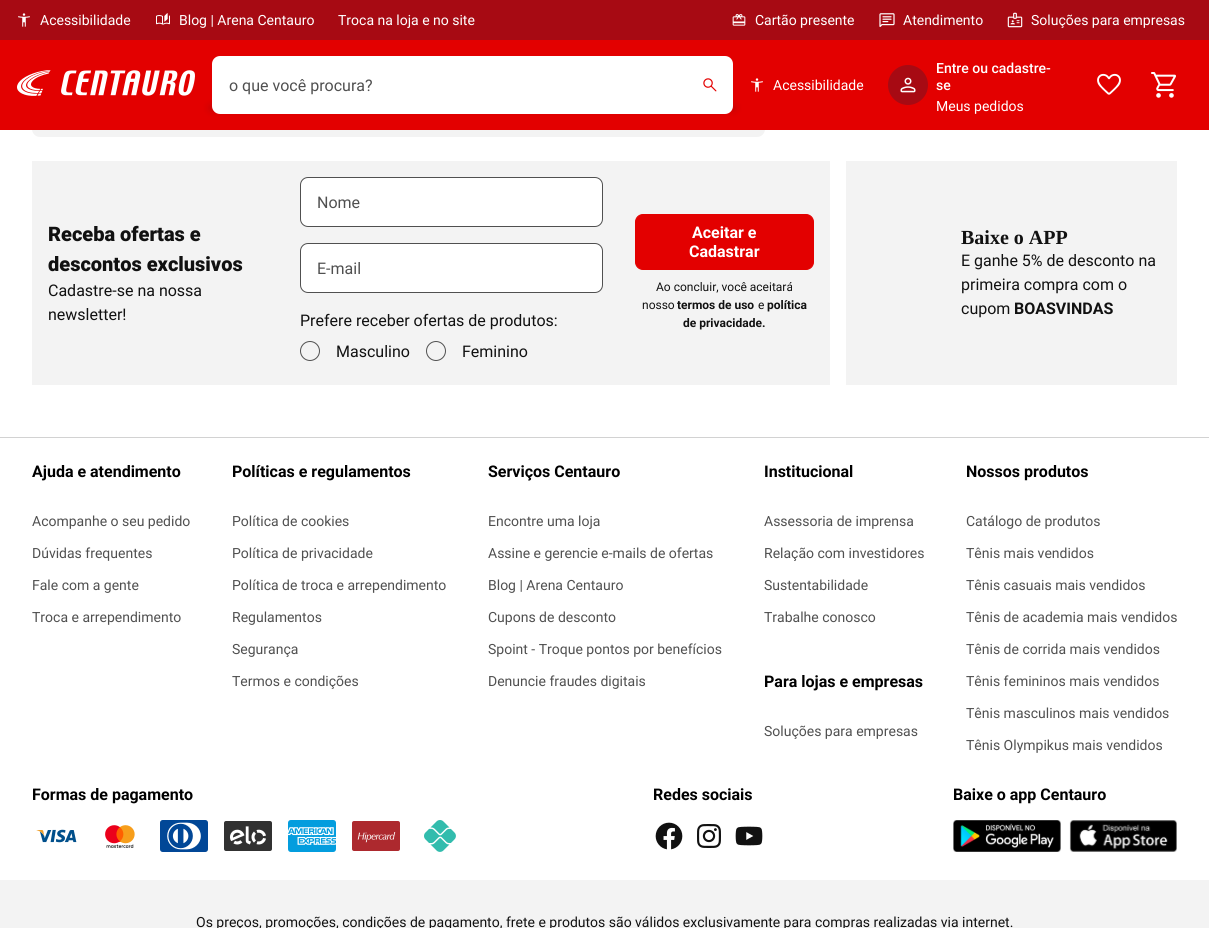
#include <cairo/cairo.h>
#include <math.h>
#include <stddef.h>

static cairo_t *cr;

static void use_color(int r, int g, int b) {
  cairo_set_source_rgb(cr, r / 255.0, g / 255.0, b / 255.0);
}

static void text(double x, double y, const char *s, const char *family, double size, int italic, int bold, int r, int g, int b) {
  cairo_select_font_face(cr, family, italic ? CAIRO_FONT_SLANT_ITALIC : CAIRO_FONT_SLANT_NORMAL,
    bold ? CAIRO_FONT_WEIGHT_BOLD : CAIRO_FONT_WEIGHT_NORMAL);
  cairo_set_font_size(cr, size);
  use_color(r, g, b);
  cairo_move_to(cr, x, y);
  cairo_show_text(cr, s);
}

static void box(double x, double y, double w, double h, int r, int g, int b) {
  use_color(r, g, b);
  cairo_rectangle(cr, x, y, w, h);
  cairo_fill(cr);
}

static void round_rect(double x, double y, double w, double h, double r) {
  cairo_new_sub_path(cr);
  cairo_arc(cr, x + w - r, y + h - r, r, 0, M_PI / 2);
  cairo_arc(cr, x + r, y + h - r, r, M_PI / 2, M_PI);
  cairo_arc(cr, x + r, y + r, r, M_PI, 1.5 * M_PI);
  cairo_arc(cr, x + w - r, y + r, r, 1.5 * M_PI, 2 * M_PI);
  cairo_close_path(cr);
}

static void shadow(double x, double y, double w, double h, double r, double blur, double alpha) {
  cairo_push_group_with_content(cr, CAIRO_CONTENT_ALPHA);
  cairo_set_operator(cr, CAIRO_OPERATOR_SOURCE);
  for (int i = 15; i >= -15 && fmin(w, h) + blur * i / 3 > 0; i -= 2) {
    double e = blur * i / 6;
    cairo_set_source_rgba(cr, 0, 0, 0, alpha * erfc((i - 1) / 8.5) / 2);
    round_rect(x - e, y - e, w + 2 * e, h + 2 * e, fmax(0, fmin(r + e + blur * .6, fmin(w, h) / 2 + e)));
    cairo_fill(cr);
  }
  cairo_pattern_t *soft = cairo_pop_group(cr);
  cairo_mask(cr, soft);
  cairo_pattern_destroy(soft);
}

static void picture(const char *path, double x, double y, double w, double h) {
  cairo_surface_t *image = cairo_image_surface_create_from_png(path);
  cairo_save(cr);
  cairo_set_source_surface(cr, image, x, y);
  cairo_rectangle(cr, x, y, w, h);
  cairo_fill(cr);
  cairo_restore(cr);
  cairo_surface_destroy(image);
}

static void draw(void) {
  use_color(255, 255, 255);
  cairo_paint(cr);
  use_color(243, 243, 243);
  round_rect(32, -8, 733, 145, 8);
  cairo_fill(cr);
  box(0, 40, 1209, 90, 227, 0, 0);
  box(0, 0, 1209, 40, 167, 10, 19);
  picture("img_01.png", 18, 13, 12, 14);
  picture("img_02.png", 156, 13, 14, 12);
  picture("img_03.png", 732, 14, 14, 12);
  picture("img_04.png", 879, 13, 16, 14);
  picture("img_05.png", 1007, 12, 16, 16);
  picture("img_06.png", 17, 70, 178, 26);
  use_color(17, 17, 17);
  shadow(210, 106, 525, 4, 0, 4, 0.16);
  use_color(255, 255, 255);
  round_rect(212, 56, 521, 58, 8);
  cairo_fill(cr);
  picture("img_07.png", 703, 78, 14, 14);
  picture("img_08.png", 751, 78, 12, 14);
  use_color(167, 10, 19);
  cairo_arc(cr, 908, 85, 20, 0, 2 * M_PI);
  cairo_fill(cr);
  picture("img_09.png", 900, 77, 16, 16);
  picture("img_10.png", 1097, 73, 24, 22);
  picture("img_11.png", 1151, 72, 25, 26);
  box(32, 161, 798, 224, 243, 243, 243);
  use_color(255, 255, 255);
  round_rect(300.5, 177.5, 302, 49, 7.5);
  cairo_fill_preserve(cr);
  use_color(80, 80, 80);
  cairo_set_line_width(cr, 1);
  cairo_stroke(cr);
  use_color(255, 255, 255);
  round_rect(300.5, 243.5, 302, 49, 7.5);
  cairo_fill_preserve(cr);
  use_color(80, 80, 80);
  cairo_stroke(cr);
  cairo_arc(cr, 310, 351, 9.5, 0, 2 * M_PI);
  cairo_stroke(cr);
  cairo_arc(cr, 436, 351, 9.5, 0, 2 * M_PI);
  cairo_stroke(cr);
  use_color(227, 0, 0);
  round_rect(635.5, 214.5, 178, 55, 7.5);
  cairo_fill_preserve(cr);
  cairo_stroke(cr);
  box(846, 161, 331, 224, 243, 243, 243);
  box(0, 437, 1209, 1, 210, 210, 210);
  picture("img_12.png", 36, 829, 41, 14);
  picture("img_13.png", 105, 825, 30, 23);
  picture("img_14.png", 160, 820, 48, 32);
  picture("img_15.png", 224, 821, 48, 30);
  picture("img_16.png", 288, 820, 48, 32);
  picture("img_17.png", 352, 821, 48, 30);
  picture("img_18.png", 424, 820, 32, 32);
  picture("img_19.png", 655, 822, 28, 28);
  picture("img_20.png", 697, 824, 24, 24);
  picture("img_21.png", 735, 826, 28, 20);
  picture("img_22.png", 953, 820, 108, 32);
  picture("img_23.png", 1069, 820, 108, 32);
  box(0, 880, 1209, 48, 243, 243, 243);
  text(40, 25, "Acessibilidade", "Roboto", 14, 0, 0, 255, 255, 255);
  text(179, 25, "Blog | Arena Centauro", "Roboto", 14, 0, 0, 255, 255, 255);
  text(338, 25, "Troca na loja e no site", "Roboto", 14, 0, 0, 255, 255, 255);
  text(755, 25, "Cartão presente", "Roboto", 14, 0, 0, 255, 255, 255);
  text(903, 25, "Atendimento", "Roboto", 14, 0, 0, 255, 255, 255);
  text(1031, 25, "Soluções para empresas", "Roboto", 14, 0, 0, 255, 255, 255);
  text(229, 91, "o que você procura?", "Roboto", 16, 0, 0, 80, 80, 80);
  text(773, 90, "Acessibilidade", "Roboto", 14, 0, 0, 255, 255, 255);
  text(936, 73, "Entre ou cadastre-", "Roboto Medium", 14, 0, 0, 255, 255, 255);
  text(936, 90, "se", "Roboto Medium", 14, 0, 0, 255, 255, 255);
  text(936, 111, "Meus pedidos", "Roboto", 14, 0, 0, 255, 255, 255);
  text(48, 241, "Receba ofertas e", "Roboto Black", 20, 0, 0, 17, 17, 17);
  text(48, 271, "descontos exclusivos", "Roboto Black", 20, 0, 0, 17, 17, 17);
  text(48, 296, "Cadastre-se na nossa", "Roboto", 16, 0, 0, 17, 17, 17);
  text(48, 320, "newsletter!", "Roboto", 16, 0, 0, 17, 17, 17);
  text(317, 208, "Nome", "Roboto", 16, 0, 0, 80, 80, 80);
  text(317, 274, "E-mail", "Roboto", 16, 0, 0, 80, 80, 80);
  text(300, 326, "Prefere receber ofertas de produtos:", "Roboto", 16, 0, 0, 17, 17, 17);
  text(336, 357, "Masculino", "Roboto", 16, 0, 0, 17, 17, 17);
  text(462, 357, "Feminino", "Roboto", 16, 0, 0, 17, 17, 17);
  text(692, 238, "Aceitar e", "Roboto", 16, 0, 1, 255, 255, 255);
  text(689, 257, "Cadastrar", "Roboto", 16, 0, 1, 255, 255, 255);
  text(656, 291, "Ao concluir, você aceitará", "Roboto", 12, 0, 0, 17, 17, 17);
  text(642, 309, "nosso", "Roboto", 12, 0, 0, 17, 17, 17);
  text(677, 309, "termos de uso", "Roboto", 12, 0, 1, 17, 17, 17);
  text(758, 309, "e", "Roboto", 12, 0, 0, 17, 17, 17);
  text(767, 309, "política", "Roboto", 12, 0, 1, 17, 17, 17);
  text(683, 327, "de privacidade.", "Roboto", 12, 0, 1, 17, 17, 17);
  text(961, 244, "Baixe o APP", "Liberation Serif", 20, 0, 1, 17, 17, 17);
  text(961, 266, "E ganhe 5% de desconto na", "Roboto", 16, 0, 0, 17, 17, 17);
  text(961, 290, "primeira compra com o", "Roboto", 16, 0, 0, 17, 17, 17);
  text(961, 314, "cupom", "Roboto", 16, 0, 0, 17, 17, 17);
  text(1014, 314, "BOASVINDAS", "Roboto", 16, 0, 1, 17, 17, 17);
  text(32, 477, "Ajuda e atendimento", "Roboto", 16, 0, 1, 0, 0, 0);
  text(32, 526, "Acompanhe o seu pedido", "Roboto", 14, 0, 0, 80, 80, 80);
  text(32, 558, "Dúvidas frequentes", "Roboto", 14, 0, 0, 80, 80, 80);
  text(32, 590, "Fale com a gente", "Roboto", 14, 0, 0, 80, 80, 80);
  text(32, 622, "Troca e arrependimento", "Roboto", 14, 0, 0, 80, 80, 80);
  text(232, 477, "Políticas e regulamentos", "Roboto", 16, 0, 1, 0, 0, 0);
  text(232, 526, "Política de cookies", "Roboto", 14, 0, 0, 80, 80, 80);
  text(232, 558, "Política de privacidade", "Roboto", 14, 0, 0, 80, 80, 80);
  text(232, 590, "Política de troca e arrependimento", "Roboto", 14, 0, 0, 80, 80, 80);
  text(232, 622, "Regulamentos", "Roboto", 14, 0, 0, 80, 80, 80);
  text(232, 654, "Segurança", "Roboto", 14, 0, 0, 80, 80, 80);
  text(232, 686, "Termos e condições", "Roboto", 14, 0, 0, 80, 80, 80);
  text(488, 477, "Serviços Centauro", "Roboto", 16, 0, 1, 0, 0, 0);
  text(488, 526, "Encontre uma loja", "Roboto", 14, 0, 0, 80, 80, 80);
  text(488, 558, "Assine e gerencie e-mails de ofertas", "Roboto", 14, 0, 0, 80, 80, 80);
  text(488, 590, "Blog | Arena Centauro", "Roboto", 14, 0, 0, 80, 80, 80);
  text(488, 622, "Cupons de desconto", "Roboto", 14, 0, 0, 80, 80, 80);
  text(488, 654, "Spoint - Troque pontos por benefícios", "Roboto", 14, 0, 0, 80, 80, 80);
  text(488, 686, "Denuncie fraudes digitais", "Roboto", 14, 0, 0, 80, 80, 80);
  text(764, 477, "Institucional", "Roboto", 16, 0, 1, 0, 0, 0);
  text(764, 526, "Assessoria de imprensa", "Roboto", 14, 0, 0, 80, 80, 80);
  text(764, 558, "Relação com investidores", "Roboto", 14, 0, 0, 80, 80, 80);
  text(764, 590, "Sustentabilidade", "Roboto", 14, 0, 0, 80, 80, 80);
  text(764, 622, "Trabalhe conosco", "Roboto", 14, 0, 0, 80, 80, 80);
  text(966, 477, "Nossos produtos", "Roboto", 16, 0, 1, 0, 0, 0);
  text(966, 526, "Catálogo de produtos", "Roboto", 14, 0, 0, 80, 80, 80);
  text(966, 558, "Tênis mais vendidos", "Roboto", 14, 0, 0, 80, 80, 80);
  text(966, 590, "Tênis casuais mais vendidos", "Roboto", 14, 0, 0, 80, 80, 80);
  text(966, 622, "Tênis de academia mais vendidos", "Roboto", 14, 0, 0, 80, 80, 80);
  text(966, 654, "Tênis de corrida mais vendidos", "Roboto", 14, 0, 0, 80, 80, 80);
  text(966, 686, "Tênis femininos mais vendidos", "Roboto", 14, 0, 0, 80, 80, 80);
  text(966, 718, "Tênis masculinos mais vendidos", "Roboto", 14, 0, 0, 80, 80, 80);
  text(966, 750, "Tênis Olympikus mais vendidos", "Roboto", 14, 0, 0, 80, 80, 80);
  text(764, 687, "Para lojas e empresas", "Roboto", 16, 0, 1, 0, 0, 0);
  text(764, 736, "Soluções para empresas", "Roboto", 14, 0, 0, 80, 80, 80);
  text(32, 800, "Formas de pagamento", "Roboto", 16, 0, 1, 0, 0, 0);
  text(653, 800, "Redes sociais", "Roboto", 16, 0, 1, 0, 0, 0);
  text(953, 800, "Baixe o app Centauro", "Roboto", 16, 0, 1, 0, 0, 0);
  text(196, 927, "Os preços, promoções, condições de pagamento, frete e produtos são válidos exclusivamente para compras realizadas via internet.", "Roboto", 14, 0, 0, 17, 17, 17);
}

int main(void) {
  cairo_surface_t *surface = cairo_image_surface_create(CAIRO_FORMAT_RGB24, 1209, 928);
  cr = cairo_create(surface);
  cairo_font_options_t *options = cairo_font_options_create();
  cairo_font_options_set_hint_metrics(options, CAIRO_HINT_METRICS_OFF);
  cairo_font_options_set_hint_style(options, CAIRO_HINT_STYLE_NONE);
  cairo_set_font_options(cr, options);
  cairo_set_miter_limit(cr, 4);
  draw();
  cairo_surface_write_to_png(surface, "out.png");
  cairo_font_options_destroy(options);
  cairo_destroy(cr);
  cairo_surface_destroy(surface);
  return 0;
}
